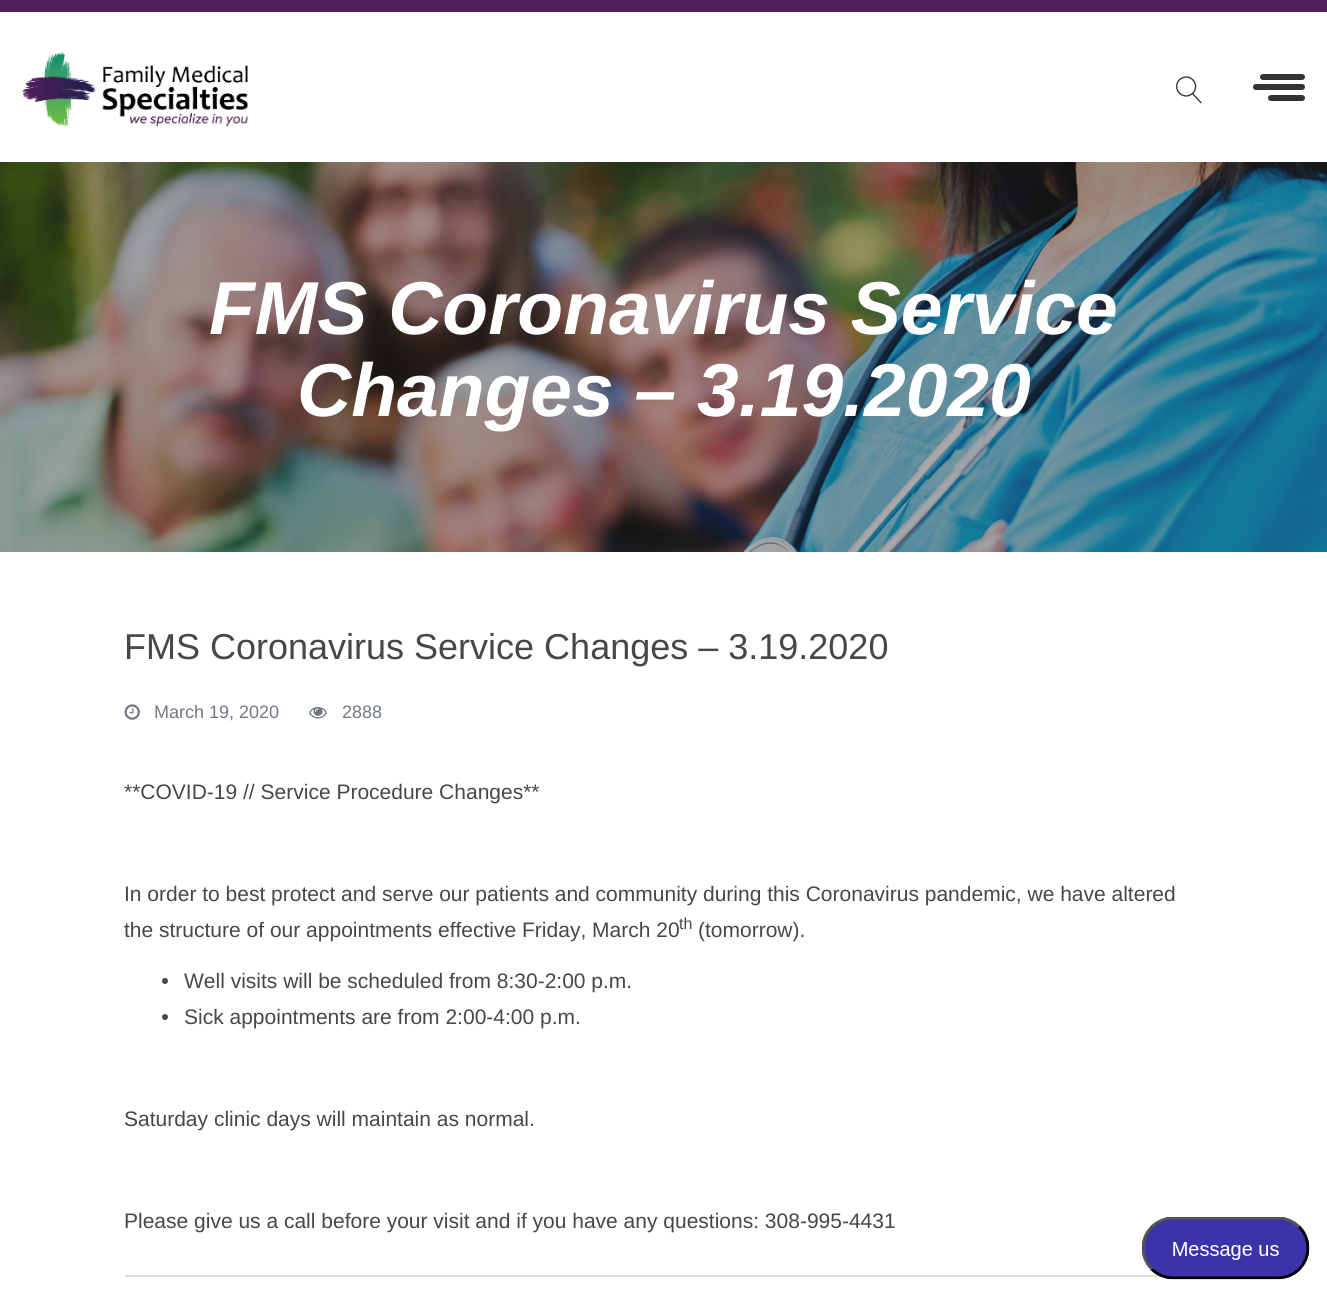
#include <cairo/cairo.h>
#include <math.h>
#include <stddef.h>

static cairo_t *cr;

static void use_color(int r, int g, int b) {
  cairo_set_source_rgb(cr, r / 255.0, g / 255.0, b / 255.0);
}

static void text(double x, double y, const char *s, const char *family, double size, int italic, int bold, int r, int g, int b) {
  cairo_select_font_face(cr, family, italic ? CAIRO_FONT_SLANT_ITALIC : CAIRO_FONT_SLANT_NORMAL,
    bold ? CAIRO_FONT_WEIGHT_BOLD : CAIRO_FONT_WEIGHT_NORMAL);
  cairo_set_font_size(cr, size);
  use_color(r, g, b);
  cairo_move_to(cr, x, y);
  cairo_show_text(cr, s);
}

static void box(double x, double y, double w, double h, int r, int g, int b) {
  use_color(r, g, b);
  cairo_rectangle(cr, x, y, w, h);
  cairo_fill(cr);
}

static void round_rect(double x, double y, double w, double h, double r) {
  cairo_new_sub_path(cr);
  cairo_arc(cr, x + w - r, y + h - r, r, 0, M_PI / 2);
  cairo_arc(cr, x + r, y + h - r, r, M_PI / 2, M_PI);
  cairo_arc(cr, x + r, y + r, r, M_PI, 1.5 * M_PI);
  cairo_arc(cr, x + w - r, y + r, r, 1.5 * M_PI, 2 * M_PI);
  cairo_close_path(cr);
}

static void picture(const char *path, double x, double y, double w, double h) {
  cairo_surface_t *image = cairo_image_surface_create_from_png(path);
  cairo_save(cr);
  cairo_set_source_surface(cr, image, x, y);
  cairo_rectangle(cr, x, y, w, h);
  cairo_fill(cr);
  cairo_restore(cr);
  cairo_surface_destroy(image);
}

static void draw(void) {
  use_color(255, 255, 255);
  cairo_paint(cr);
  box(0, 0, 1327, 12, 82, 29, 91);
  picture("img_01.png", 22, 52, 226, 74);
  picture("img_02.png", 1176, 76, 26, 28);
  use_color(51, 51, 51);
  round_rect(1260, 74, 45, 6, 3);
  cairo_fill(cr);
  round_rect(1253, 84, 52, 6, 3);
  cairo_fill(cr);
  round_rect(1268, 95, 37, 6, 3);
  cairo_fill(cr);
  picture("img_03.png", 0, 162, 1327, 390);
  picture("img_04.png", 124, 704, 16, 16);
  picture("img_05.png", 309, 706, 18, 13);
  use_color(71, 71, 71);
  cairo_arc(cr, 165, 981, 3, 0, 2 * M_PI);
  cairo_fill(cr);
  cairo_arc(cr, 165, 1017, 3, 0, 2 * M_PI);
  cairo_fill(cr);
  box(125, 1275, 1036, 2, 221, 221, 221);
  picture("img_06.png", 1142, 1217, 168, 63);
  text(209, 334, "FMS Coronavirus Service", "Liberation Sans", 75, 1, 1, 255, 255, 255);
  text(297, 416, "Changes – 3.19.2020", "Liberation Sans", 75, 1, 1, 255, 255, 255);
  text(124, 659, "FMS Coronavirus Service Changes – 3.19.2020", "Liberation Sans", 36, 0, 0, 71, 71, 71);
  text(154, 718, "March 19, 2020", "Liberation Sans", 18, 0, 0, 114, 120, 131);
  text(342, 718, "2888", "Liberation Sans", 18, 0, 0, 114, 120, 131);
  text(124, 799, "**COVID-19 // Service Procedure Changes**", "Liberation Sans", 21, 0, 0, 71, 71, 71);
  text(124, 901, "In order to best protect and serve our patients and community during this Coronavirus pandemic, we have altered", "Liberation Sans", 21, 0, 0, 71, 71, 71);
  text(124, 937, "the structure of our appointments effective Friday, March 20", "Liberation Sans", 21, 0, 0, 71, 71, 71);
  text(679, 929, "th", "Liberation Sans", 16, 0, 0, 71, 71, 71);
  text(698, 937, "(tomorrow).", "Liberation Sans", 21, 0, 0, 71, 71, 71);
  text(184, 988, "Well visits will be scheduled from 8:30-2:00 p.m.", "Liberation Sans", 21, 0, 0, 71, 71, 71);
  text(184, 1024, "Sick appointments are from 2:00-4:00 p.m.", "Liberation Sans", 21, 0, 0, 71, 71, 71);
  text(124, 1126, "Saturday clinic days will maintain as normal.", "Liberation Sans", 21, 0, 0, 71, 71, 71);
  text(124, 1228, "Please give us a call before your visit and if you have any questions: 308-995-4431", "Liberation Sans", 21, 0, 0, 71, 71, 71);
}

int main(void) {
  cairo_surface_t *surface = cairo_image_surface_create(CAIRO_FORMAT_RGB24, 1327, 1297);
  cr = cairo_create(surface);
  cairo_font_options_t *options = cairo_font_options_create();
  cairo_font_options_set_hint_metrics(options, CAIRO_HINT_METRICS_OFF);
  cairo_font_options_set_hint_style(options, CAIRO_HINT_STYLE_NONE);
  cairo_set_font_options(cr, options);
  cairo_set_miter_limit(cr, 4);
  draw();
  cairo_surface_write_to_png(surface, "out.png");
  cairo_font_options_destroy(options);
  cairo_destroy(cr);
  cairo_surface_destroy(surface);
  return 0;
}
